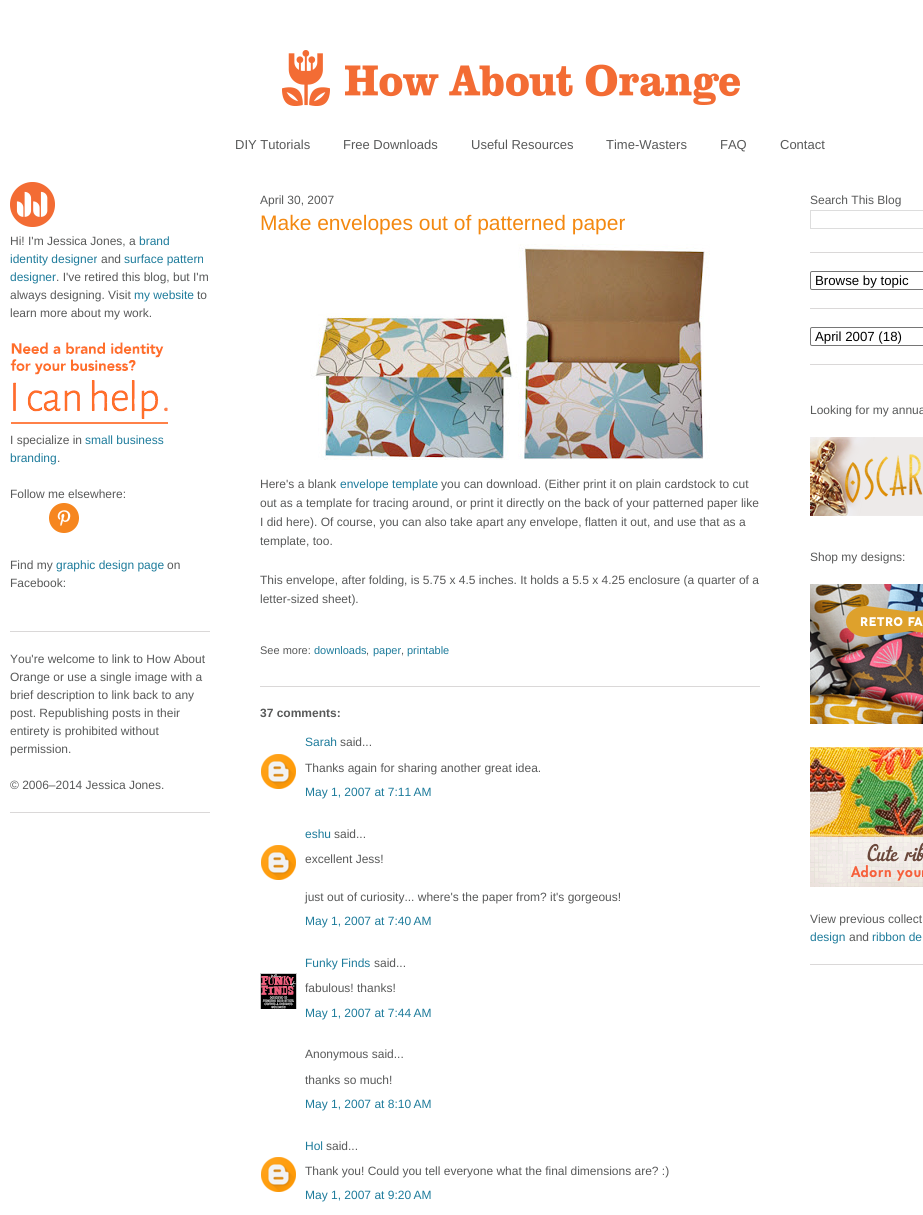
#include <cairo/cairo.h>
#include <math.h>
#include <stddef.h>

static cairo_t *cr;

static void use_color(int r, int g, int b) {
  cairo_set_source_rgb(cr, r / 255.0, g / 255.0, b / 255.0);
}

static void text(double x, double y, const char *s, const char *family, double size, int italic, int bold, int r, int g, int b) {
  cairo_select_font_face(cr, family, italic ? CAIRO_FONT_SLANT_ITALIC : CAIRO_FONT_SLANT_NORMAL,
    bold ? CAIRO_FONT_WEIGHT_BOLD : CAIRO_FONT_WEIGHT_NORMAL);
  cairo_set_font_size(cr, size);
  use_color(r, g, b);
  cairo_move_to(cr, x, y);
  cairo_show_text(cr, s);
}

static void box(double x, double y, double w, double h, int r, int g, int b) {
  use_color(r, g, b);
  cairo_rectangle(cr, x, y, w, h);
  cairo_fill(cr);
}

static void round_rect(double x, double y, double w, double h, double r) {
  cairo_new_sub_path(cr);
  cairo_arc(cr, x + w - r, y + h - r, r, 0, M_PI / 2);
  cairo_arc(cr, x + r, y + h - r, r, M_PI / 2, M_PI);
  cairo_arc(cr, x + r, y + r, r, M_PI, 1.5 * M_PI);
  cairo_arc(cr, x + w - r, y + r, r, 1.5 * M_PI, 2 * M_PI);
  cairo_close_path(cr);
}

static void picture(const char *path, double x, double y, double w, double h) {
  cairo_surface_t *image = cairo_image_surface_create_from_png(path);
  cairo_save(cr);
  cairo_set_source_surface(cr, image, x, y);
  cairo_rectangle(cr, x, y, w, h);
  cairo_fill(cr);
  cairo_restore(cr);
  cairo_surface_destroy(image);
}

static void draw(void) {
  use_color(255, 255, 255);
  cairo_paint(cr);
  picture("img_01.png", 282, 50, 458, 56);
  box(10, 631, 200, 1, 218, 216, 216);
  picture("img_02.png", 10, 182, 45, 45);
  picture("img_03.png", 10, 342, 158, 82);
  picture("img_04.png", 49, 503, 30, 30);
  box(10, 812, 200, 1, 218, 216, 216);
  box(260, 686, 500, 1, 218, 216, 216);
  picture("img_05.png", 310, 244, 400, 216);
  picture("img_06.png", 261, 754, 35, 35);
  picture("img_06.png", 261, 845, 35, 35);
  cairo_save(cr);
  cairo_rectangle(cr, 260, 973, 37, 36);
  cairo_clip(cr);
  cairo_rectangle(cr, 260.5, 973.5, 36, 36);
  use_color(204, 204, 204);
  cairo_set_line_width(cr, 1);
  cairo_stroke(cr);
  cairo_restore(cr);
  picture("img_07.png", 261, 974, 35, 35);
  picture("img_06.png", 261, 1157, 35, 35);
  box(810, 252, 113, 1, 218, 216, 216);
  cairo_rectangle(cr, 810.5, 210.5, 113, 18);
  use_color(221, 221, 221);
  cairo_set_line_width(cr, 1);
  cairo_stroke(cr);
  box(810, 308, 113, 1, 218, 216, 216);
  round_rect(810.5, 271.5, 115, 18, 1.5);
  use_color(118, 118, 118);
  cairo_stroke(cr);
  box(810, 364, 113, 1, 218, 216, 216);
  round_rect(810.5, 327.5, 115, 18, 1.5);
  use_color(118, 118, 118);
  cairo_stroke(cr);
  picture("img_08.png", 810, 437, 113, 79);
  box(810, 964, 113, 1, 218, 216, 216);
  picture("img_09.png", 810, 584, 113, 140);
  picture("img_10.png", 810, 747, 113, 140);
  text(235, 149, "DIY Tutorials", "Liberation Sans", 13, 0, 0, 88, 89, 89);
  text(343, 149, "Free Downloads", "Liberation Sans", 13, 0, 0, 88, 89, 89);
  text(471, 149, "Useful Resources", "Liberation Sans", 13, 0, 0, 88, 89, 89);
  text(606, 149, "Time-Wasters", "Liberation Sans", 13, 0, 0, 88, 89, 89);
  text(720, 149, "FAQ", "Liberation Sans", 13, 0, 0, 88, 89, 89);
  text(780, 149, "Contact", "Liberation Sans", 13, 0, 0, 88, 89, 89);
  text(10, 245, "Hi! I'm Jessica Jones, a", "Liberation Sans", 12, 0, 0, 88, 89, 89);
  text(139, 245, "brand", "Liberation Sans", 12, 0, 0, 29, 123, 155);
  text(10, 263, "identity designer", "Liberation Sans", 12, 0, 0, 29, 123, 155);
  text(101, 263, "and", "Liberation Sans", 12, 0, 0, 88, 89, 89);
  text(124, 263, "surface pattern", "Liberation Sans", 12, 0, 0, 29, 123, 155);
  text(10, 281, "designer", "Liberation Sans", 12, 0, 0, 29, 123, 155);
  text(56, 281, ". I've retired this blog, but I'm", "Liberation Sans", 12, 0, 0, 88, 89, 89);
  text(10, 299, "always designing. Visit", "Liberation Sans", 12, 0, 0, 88, 89, 89);
  text(134, 299, "my website", "Liberation Sans", 12, 0, 0, 29, 123, 155);
  text(197, 299, "to", "Liberation Sans", 12, 0, 0, 88, 89, 89);
  text(10, 317, "learn more about my work.", "Liberation Sans", 12, 0, 0, 88, 89, 89);
  text(10, 444, "I specialize in", "Liberation Sans", 12, 0, 0, 88, 89, 89);
  text(85, 444, "small business", "Liberation Sans", 12, 0, 0, 29, 123, 155);
  text(10, 462, "branding", "Liberation Sans", 12, 0, 0, 29, 123, 155);
  text(57, 462, ".", "Liberation Sans", 12, 0, 0, 88, 89, 89);
  text(10, 498, "Follow me elsewhere:", "Liberation Sans", 12, 0, 0, 88, 89, 89);
  text(10, 569, "Find my", "Liberation Sans", 12, 0, 0, 88, 89, 89);
  text(56, 569, "graphic design page", "Liberation Sans", 12, 0, 0, 29, 123, 155);
  text(167, 569, "on", "Liberation Sans", 12, 0, 0, 88, 89, 89);
  text(10, 587, "Facebook:", "Liberation Sans", 12, 0, 0, 88, 89, 89);
  text(10, 663, "You're welcome to link to How About", "Liberation Sans", 12, 0, 0, 88, 89, 89);
  text(10, 681, "Orange or use a single image with a", "Liberation Sans", 12, 0, 0, 88, 89, 89);
  text(10, 699, "brief description to link back to any", "Liberation Sans", 12, 0, 0, 88, 89, 89);
  text(10, 717, "post. Republishing posts in their", "Liberation Sans", 12, 0, 0, 88, 89, 89);
  text(10, 735, "entirety is prohibited without", "Liberation Sans", 12, 0, 0, 88, 89, 89);
  text(10, 753, "permission.", "Liberation Sans", 12, 0, 0, 88, 89, 89);
  text(10, 789, "© 2006–2014 Jessica Jones.", "Liberation Sans", 12, 0, 0, 88, 89, 89);
  text(260, 204, "April 30, 2007", "Liberation Sans", 12, 0, 0, 88, 89, 89);
  text(260, 230, "Make envelopes out of patterned paper", "Liberation Sans", 21, 0, 0, 243, 136, 16);
  text(260, 488, "Here's a blank", "Liberation Sans", 12, 0, 0, 88, 89, 89);
  text(340, 488, "envelope template", "Liberation Sans", 12, 0, 0, 29, 123, 155);
  text(441, 488, "you can download. (Either print it on plain cardstock to cut", "Liberation Sans", 12, 0, 0, 88, 89, 89);
  text(260, 507, "out as a template for tracing around, or print it directly on the back of your patterned paper like", "Liberation Sans", 12, 0, 0, 88, 89, 89);
  text(260, 526, "I did here). Of course, you can also take apart any envelope, flatten it out, and use that as a", "Liberation Sans", 12, 0, 0, 88, 89, 89);
  text(260, 545, "template, too.", "Liberation Sans", 12, 0, 0, 88, 89, 89);
  text(260, 584, "This envelope, after folding, is 5.75 x 4.5 inches. It holds a 5.5 x 4.25 enclosure (a quarter of a", "Liberation Sans", 12, 0, 0, 88, 89, 89);
  text(260, 603, "letter-sized sheet).", "Liberation Sans", 12, 0, 0, 88, 89, 89);
  text(260, 654, "See more:", "Liberation Sans", 11, 0, 0, 88, 89, 89);
  text(314, 654, "downloads", "Liberation Sans", 11, 0, 0, 29, 123, 155);
  text(366, 654, ",", "Liberation Sans", 11, 0, 0, 88, 89, 89);
  text(373, 654, "paper", "Liberation Sans", 11, 0, 0, 29, 123, 155);
  text(401, 654, ",", "Liberation Sans", 11, 0, 0, 88, 89, 89);
  text(407, 654, "printable", "Liberation Sans", 11, 0, 0, 29, 123, 155);
  text(260, 717, "37 comments:", "Liberation Sans", 12, 0, 1, 88, 89, 89);
  text(305, 746, "Sarah", "Liberation Sans", 12, 0, 0, 29, 123, 155);
  text(340, 746, "said...", "Liberation Sans", 12, 0, 0, 88, 89, 89);
  text(305, 772, "Thanks again for sharing another great idea.", "Liberation Sans", 12, 0, 0, 88, 89, 89);
  text(305, 796, "May 1, 2007 at 7:11 AM", "Liberation Sans", 12, 0, 0, 29, 123, 155);
  text(305, 838, "eshu", "Liberation Sans", 12, 0, 0, 29, 123, 155);
  text(334, 838, "said...", "Liberation Sans", 12, 0, 0, 88, 89, 89);
  text(305, 863, "excellent Jess!", "Liberation Sans", 12, 0, 0, 88, 89, 89);
  text(305, 901, "just out of curiosity... where's the paper from? it's gorgeous!", "Liberation Sans", 12, 0, 0, 88, 89, 89);
  text(305, 925, "May 1, 2007 at 7:40 AM", "Liberation Sans", 12, 0, 0, 29, 123, 155);
  text(305, 967, "Funky Finds", "Liberation Sans", 12, 0, 0, 29, 123, 155);
  text(374, 967, "said...", "Liberation Sans", 12, 0, 0, 88, 89, 89);
  text(305, 992, "fabulous! thanks!", "Liberation Sans", 12, 0, 0, 88, 89, 89);
  text(305, 1017, "May 1, 2007 at 7:44 AM", "Liberation Sans", 12, 0, 0, 29, 123, 155);
  text(305, 1058, "Anonymous said...", "Liberation Sans", 12, 0, 0, 88, 89, 89);
  text(305, 1084, "thanks so much!", "Liberation Sans", 12, 0, 0, 88, 89, 89);
  text(305, 1108, "May 1, 2007 at 8:10 AM", "Liberation Sans", 12, 0, 0, 29, 123, 155);
  text(305, 1150, "Hol", "Liberation Sans", 12, 0, 0, 29, 123, 155);
  text(326, 1150, "said...", "Liberation Sans", 12, 0, 0, 88, 89, 89);
  text(305, 1175, "Thank you! Could you tell everyone what the final dimensions are? :)", "Liberation Sans", 12, 0, 0, 88, 89, 89);
  text(305, 1199, "May 1, 2007 at 9:20 AM", "Liberation Sans", 12, 0, 0, 29, 123, 155);
  text(810, 204, "Search This Blog", "Liberation Sans", 12, 0, 0, 88, 89, 89);
  text(815, 285, "Browse by topic", "Liberation Sans", 13.25, 0, 0, 0, 0, 0);
  text(815, 341, "April 2007 (18)", "Liberation Sans", 13.25, 0, 0, 0, 0, 0);
  text(810, 414, "Looking for my annua", "Liberation Sans", 12, 0, 0, 88, 89, 89);
  text(810, 561, "Shop my designs:", "Liberation Sans", 12, 0, 0, 88, 89, 89);
  text(810, 923, "View previous collect", "Liberation Sans", 12, 0, 0, 88, 89, 89);
  text(810, 941, "design", "Liberation Sans", 12, 0, 0, 29, 123, 155);
  text(849, 941, "and", "Liberation Sans", 12, 0, 0, 88, 89, 89);
  text(872, 941, "ribbon de", "Liberation Sans", 12, 0, 0, 29, 123, 155);
}

int main(void) {
  cairo_surface_t *surface = cairo_image_surface_create(CAIRO_FORMAT_RGB24, 923, 1215);
  cr = cairo_create(surface);
  cairo_font_options_t *options = cairo_font_options_create();
  cairo_font_options_set_hint_metrics(options, CAIRO_HINT_METRICS_OFF);
  cairo_font_options_set_hint_style(options, CAIRO_HINT_STYLE_NONE);
  cairo_set_font_options(cr, options);
  cairo_set_miter_limit(cr, 4);
  draw();
  cairo_surface_write_to_png(surface, "out.png");
  cairo_font_options_destroy(options);
  cairo_destroy(cr);
  cairo_surface_destroy(surface);
  return 0;
}
